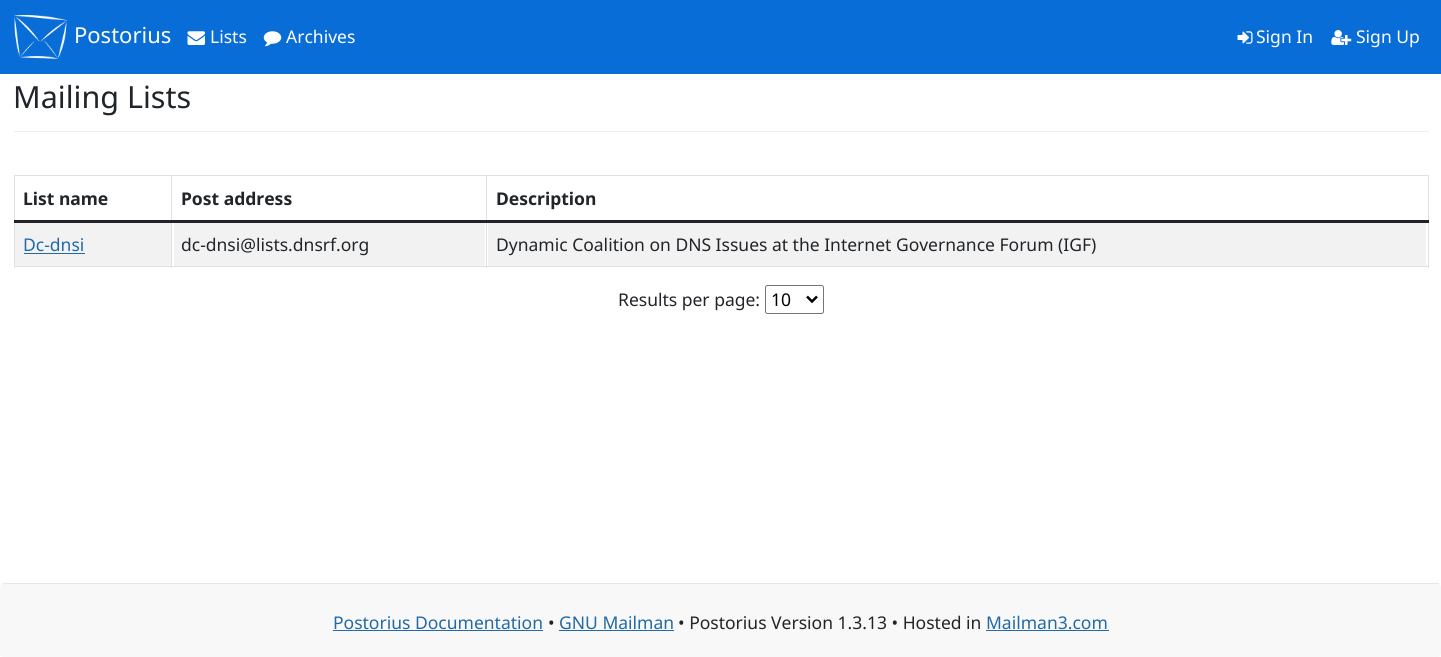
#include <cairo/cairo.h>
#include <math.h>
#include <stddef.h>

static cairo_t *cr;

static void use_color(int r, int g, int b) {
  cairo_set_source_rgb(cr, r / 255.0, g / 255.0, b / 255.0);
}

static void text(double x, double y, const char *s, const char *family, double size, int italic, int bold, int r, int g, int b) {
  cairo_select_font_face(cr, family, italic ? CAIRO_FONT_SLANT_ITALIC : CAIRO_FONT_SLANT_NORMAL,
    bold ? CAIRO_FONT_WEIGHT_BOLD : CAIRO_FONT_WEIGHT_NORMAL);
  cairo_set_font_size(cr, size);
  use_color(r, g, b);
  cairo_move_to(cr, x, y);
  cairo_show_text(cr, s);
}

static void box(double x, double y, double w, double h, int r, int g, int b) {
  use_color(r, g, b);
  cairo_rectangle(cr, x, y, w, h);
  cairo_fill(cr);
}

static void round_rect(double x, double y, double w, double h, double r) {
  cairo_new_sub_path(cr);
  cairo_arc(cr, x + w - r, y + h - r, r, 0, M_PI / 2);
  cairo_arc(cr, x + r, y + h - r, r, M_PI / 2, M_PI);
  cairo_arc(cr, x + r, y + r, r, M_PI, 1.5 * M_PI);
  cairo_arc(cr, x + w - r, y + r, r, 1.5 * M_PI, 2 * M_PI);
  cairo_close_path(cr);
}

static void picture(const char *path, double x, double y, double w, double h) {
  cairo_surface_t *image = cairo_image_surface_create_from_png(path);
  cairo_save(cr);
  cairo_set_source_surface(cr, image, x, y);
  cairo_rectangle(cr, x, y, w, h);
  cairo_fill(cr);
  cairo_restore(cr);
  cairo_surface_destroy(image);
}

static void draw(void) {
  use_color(255, 255, 255);
  cairo_paint(cr);
  box(0, 0, 1441, 74, 8, 109, 215);
  picture("img_01.png", 14, 15, 54, 44);
  picture("img_02.png", 187, 31, 18, 14);
  picture("img_03.png", 263, 31, 19, 16);
  picture("img_04.png", 1237, 31, 16, 13);
  picture("img_05.png", 1331, 30, 21, 15);
  box(14, 131, 1415, 1, 238, 238, 238);
  box(14, 175, 1415, 1, 222, 226, 230);
  box(14, 266, 1415, 1, 222, 226, 230);
  box(14, 175, 1, 93, 222, 226, 230);
  box(171, 175, 1, 93, 222, 226, 230);
  box(1428, 175, 1, 93, 222, 226, 230);
  box(486, 175, 1, 93, 222, 226, 230);
  box(14, 220, 1415, 3, 33, 37, 41);
  box(15, 223, 156, 43, 242, 242, 242);
  box(24, 253, 61, 1, 34, 105, 166);
  box(174, 223, 311, 43, 242, 242, 242);
  box(488, 223, 938, 43, 242, 242, 242);
  round_rect(765.5, 285.5, 58, 28, 2);
  use_color(118, 118, 118);
  cairo_set_line_width(cr, 1);
  cairo_stroke(cr);
  cairo_new_path(cr);
  cairo_move_to(cr, 807, 296.5);
  cairo_line_to(cr, 812, 301.5);
  cairo_line_to(cr, 817, 296.5);
  use_color(0, 0, 0);
  cairo_set_line_width(cr, 2.5);
  cairo_stroke(cr);
  use_color(248, 248, 248);
  round_rect(0, 583, 1441, 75, 5);
  cairo_fill(cr);
  box(3, 583, 1436, 1, 231, 231, 231);
  box(333, 630, 210, 1, 34, 105, 166);
  box(559, 630, 115, 1, 34, 105, 166);
  box(986, 630, 123, 1, 34, 105, 166);
  text(74, 43, "Postorius", "Noto Sans", 22, 0, 0, 255, 255, 255);
  text(210, 43, "Lists", "Noto Sans", 17.5, 0, 0, 255, 255, 255);
  text(286, 43, "Archives", "Noto Sans", 17.5, 0, 0, 255, 255, 255);
  text(1256, 43, "Sign In", "Noto Sans", 17.5, 0, 0, 255, 255, 255);
  text(1356, 43, "Sign Up", "Noto Sans", 17.5, 0, 0, 255, 255, 255);
  text(13, 108, "Mailing Lists", "Noto Sans", 30.5, 0, 0, 33, 37, 41);
  text(23, 205, "List name", "Noto Sans", 17.5, 0, 1, 33, 37, 41);
  text(181, 205, "Post address", "Noto Sans", 17.5, 0, 1, 33, 37, 41);
  text(496, 205, "Description", "Noto Sans", 17.5, 0, 1, 33, 37, 41);
  text(23, 251, "Dc-dnsi", "Noto Sans", 17.5, 0, 0, 34, 105, 166);
  text(181, 251, "dc-dnsi@lists.dnsrf.org", "Noto Sans", 17.5, 0, 0, 33, 37, 41);
  text(496, 251, "Dynamic Coalition on DNS Issues at the Internet Governance Forum (IGF)", "Noto Sans", 17.5, 0, 0, 33, 37, 41);
  text(618, 306, "Results per page:", "Noto Sans", 17.5, 0, 0, 33, 37, 41);
  text(771, 306, "10", "Noto Sans", 17.5, 0, 0, 0, 0, 0);
  text(333, 629, "Postorius Documentation", "Noto Sans", 17.5, 0, 0, 34, 105, 166);
  text(548, 629, "•", "Noto Sans", 17.5, 0, 0, 33, 37, 41);
  text(559, 629, "GNU Mailman", "Noto Sans", 17.5, 0, 0, 34, 105, 166);
  text(678, 629, "• Postorius Version 1.3.13 • Hosted in", "Noto Sans", 17.5, 0, 0, 33, 37, 41);
  text(986, 629, "Mailman3.com", "Noto Sans", 17.5, 0, 0, 34, 105, 166);
}

int main(void) {
  cairo_surface_t *surface = cairo_image_surface_create(CAIRO_FORMAT_RGB24, 1441, 657);
  cr = cairo_create(surface);
  cairo_font_options_t *options = cairo_font_options_create();
  cairo_font_options_set_hint_metrics(options, CAIRO_HINT_METRICS_OFF);
  cairo_font_options_set_hint_style(options, CAIRO_HINT_STYLE_NONE);
  cairo_set_font_options(cr, options);
  cairo_set_miter_limit(cr, 4);
  draw();
  cairo_surface_write_to_png(surface, "out.png");
  cairo_font_options_destroy(options);
  cairo_destroy(cr);
  cairo_surface_destroy(surface);
  return 0;
}
